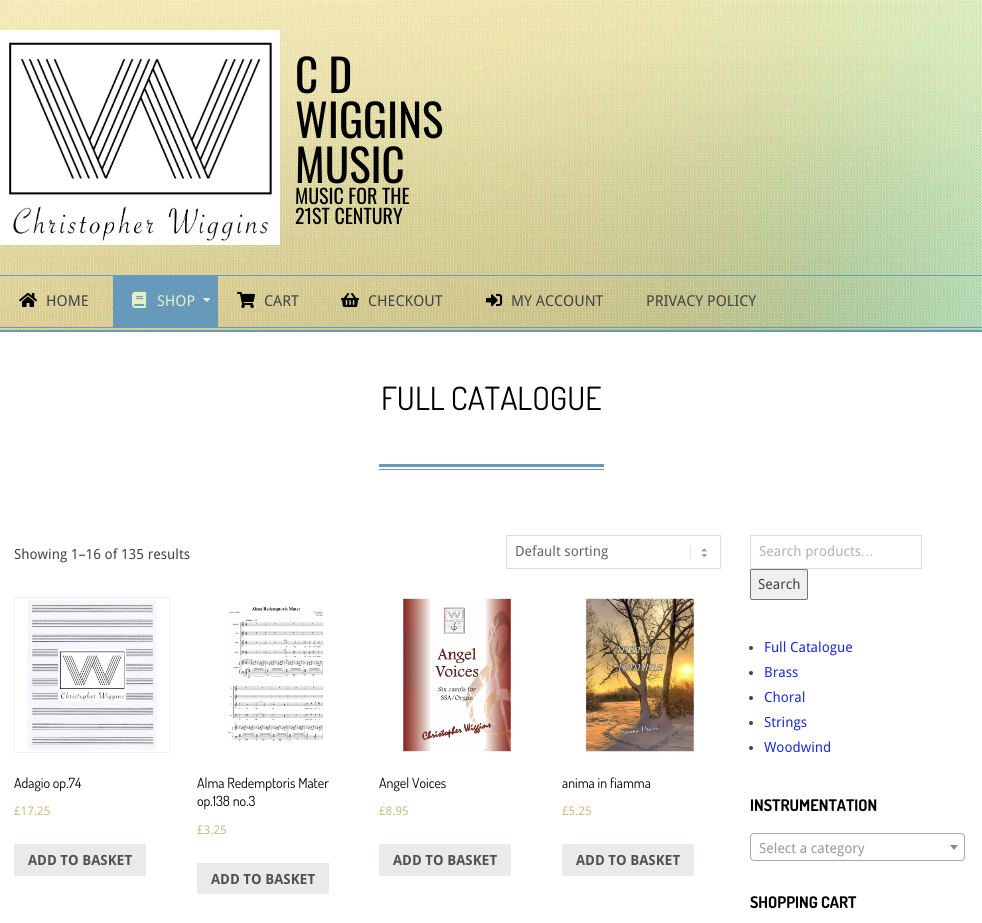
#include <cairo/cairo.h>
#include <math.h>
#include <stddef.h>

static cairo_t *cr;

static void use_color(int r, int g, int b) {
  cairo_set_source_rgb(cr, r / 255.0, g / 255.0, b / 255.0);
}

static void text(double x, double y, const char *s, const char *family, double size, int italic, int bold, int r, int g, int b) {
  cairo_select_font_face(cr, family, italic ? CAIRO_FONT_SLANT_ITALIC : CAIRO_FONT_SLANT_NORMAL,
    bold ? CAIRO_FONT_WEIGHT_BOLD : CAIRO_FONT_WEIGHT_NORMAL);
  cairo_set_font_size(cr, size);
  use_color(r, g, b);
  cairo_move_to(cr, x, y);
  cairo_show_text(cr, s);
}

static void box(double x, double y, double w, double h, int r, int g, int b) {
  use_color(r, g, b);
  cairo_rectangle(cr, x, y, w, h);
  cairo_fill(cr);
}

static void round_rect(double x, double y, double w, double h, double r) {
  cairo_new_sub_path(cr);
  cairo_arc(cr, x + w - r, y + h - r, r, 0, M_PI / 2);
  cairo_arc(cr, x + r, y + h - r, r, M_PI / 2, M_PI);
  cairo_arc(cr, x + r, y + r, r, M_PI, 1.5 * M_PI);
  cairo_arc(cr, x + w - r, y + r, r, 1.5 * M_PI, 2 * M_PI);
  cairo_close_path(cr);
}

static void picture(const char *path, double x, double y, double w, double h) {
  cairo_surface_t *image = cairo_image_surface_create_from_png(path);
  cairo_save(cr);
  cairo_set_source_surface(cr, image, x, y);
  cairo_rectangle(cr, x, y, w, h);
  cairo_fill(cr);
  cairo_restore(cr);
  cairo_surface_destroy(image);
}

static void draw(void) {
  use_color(255, 255, 255);
  cairo_paint(cr);
  picture("img_01.png", 0, 0, 982, 330);
  picture("img_02.png", 0, 30, 280, 215);
  box(0, 275, 982, 1, 103, 154, 186);
  box(0, 330, 982, 2, 103, 154, 186);
  picture("img_03.png", 19, 292, 19, 15);
  box(113, 276, 105, 51, 103, 154, 186);
  picture("img_04.png", 132, 291, 15, 17);
  picture("img_05.png", 203, 298, 8, 4);
  picture("img_06.png", 237, 291, 19, 17);
  picture("img_07.png", 341, 293, 19, 14);
  picture("img_08.png", 486, 293, 17, 14);
  box(0, 327, 982, 1, 103, 154, 186);
  box(379, 464, 225, 3, 103, 154, 186);
  box(379, 469, 225, 1, 103, 154, 186);
  picture("img_09.png", 690, 546, 18, 13);
  cairo_rectangle(cr, 506.5, 535.5, 214, 33);
  use_color(221, 221, 221);
  cairo_set_line_width(cr, 1);
  cairo_stroke(cr);
  cairo_rectangle(cr, 14.5, 597.5, 155, 155);
  use_color(242, 242, 242);
  cairo_stroke(cr);
  picture("img_10.png", 27, 600, 130, 150);
  box(14, 844, 132, 32, 235, 233, 235);
  picture("img_11.png", 228, 607, 95, 135);
  box(197, 863, 132, 31, 235, 233, 235);
  picture("img_12.png", 403, 598, 108, 154);
  box(379, 844, 132, 32, 235, 233, 235);
  picture("img_13.png", 583, 597, 112, 156);
  box(562, 844, 132, 32, 235, 233, 235);
  cairo_rectangle(cr, 750.5, 535.5, 171, 33);
  use_color(221, 221, 221);
  cairo_stroke(cr);
  use_color(239, 239, 239);
  round_rect(750.5, 569.5, 57, 30, 1.5);
  cairo_fill_preserve(cr);
  use_color(118, 118, 118);
  cairo_stroke(cr);
  use_color(68, 68, 68);
  cairo_arc(cr, 751, 648, 2, 0, 2 * M_PI);
  cairo_fill(cr);
  cairo_arc(cr, 751, 673, 2, 0, 2 * M_PI);
  cairo_fill(cr);
  cairo_arc(cr, 751, 698, 2, 0, 2 * M_PI);
  cairo_fill(cr);
  cairo_arc(cr, 751, 723, 2, 0, 2 * M_PI);
  cairo_fill(cr);
  cairo_arc(cr, 751, 748, 2, 0, 2 * M_PI);
  cairo_fill(cr);
  round_rect(750.5, 833.5, 214, 27, 3.5);
  use_color(170, 170, 170);
  cairo_stroke(cr);
  use_color(136, 136, 136);
  cairo_new_path(cr);
  cairo_move_to(cr, 950, 845);
  cairo_line_to(cr, 958, 845);
  cairo_line_to(cr, 954, 850);
  cairo_close_path(cr);
  cairo_fill(cr);
  text(295, 93, "C D", "Oswald", 45, 0, 0, 0, 0, 0);
  text(295, 138, "WIGGINS", "Oswald", 45, 0, 0, 0, 0, 0);
  text(295, 183, "MUSIC", "Oswald", 45, 0, 0, 0, 0, 0);
  text(295, 204, "MUSIC FOR THE", "Oswald", 20, 0, 0, 0, 0, 0);
  text(295, 224, "21ST CENTURY", "Oswald", 20, 0, 0, 0, 0, 0);
  text(46, 306, "HOME", "Droid Sans", 15, 0, 0, 68, 68, 68);
  text(157, 306, "SHOP", "Droid Sans", 15, 0, 0, 228, 238, 199);
  text(264, 306, "CART", "Droid Sans", 15, 0, 0, 68, 68, 68);
  text(368, 306, "CHECKOUT", "Droid Sans", 15, 0, 0, 68, 68, 68);
  text(511, 306, "MY ACCOUNT", "Droid Sans", 15, 0, 0, 68, 68, 68);
  text(646, 306, "PRIVACY POLICY", "Droid Sans", 15, 0, 0, 68, 68, 68);
  text(381, 410, "FULL CATALOGUE", "Dosis", 32, 0, 0, 0, 0, 0);
  text(14, 559, "Showing 1–16 of 135 results", "Droid Sans", 14, 0, 0, 68, 68, 68);
  text(515, 556, "Default sorting", "Droid Sans", 14, 0, 0, 102, 102, 102);
  text(14, 788, "Adagio op.74", "Dosis", 14, 0, 0, 0, 0, 0);
  text(14, 815, "£17.25", "Droid Sans", 12, 0, 0, 198, 189, 131);
  text(28, 865, "ADD TO BASKET", "Droid Sans", 14, 0, 1, 81, 81, 81);
  text(197, 788, "Alma Redemptoris Mater", "Dosis", 14, 0, 0, 0, 0, 0);
  text(197, 806, "op.138 no.3", "Dosis", 14, 0, 0, 0, 0, 0);
  text(197, 834, "£3.25", "Droid Sans", 12, 0, 0, 198, 189, 131);
  text(211, 884, "ADD TO BASKET", "Droid Sans", 14, 0, 1, 81, 81, 81);
  text(379, 788, "Angel Voices", "Dosis", 14, 0, 0, 0, 0, 0);
  text(379, 815, "£8.95", "Droid Sans", 12, 0, 0, 198, 189, 131);
  text(393, 865, "ADD TO BASKET", "Droid Sans", 14, 0, 1, 81, 81, 81);
  text(562, 788, "anima in fiamma", "Dosis", 14, 0, 0, 0, 0, 0);
  text(562, 815, "£5.25", "Droid Sans", 12, 0, 0, 198, 189, 131);
  text(576, 865, "ADD TO BASKET", "Droid Sans", 14, 0, 1, 81, 81, 81);
  text(759, 556, "Search products", "Droid Sans", 14, 0, 0, 179, 179, 179);
  text(860, 556, "…", "Liberation Sans", 14, 0, 0, 179, 179, 179);
  text(758, 589, "Search", "Droid Sans", 14, 0, 0, 68, 68, 68);
  text(764, 652, "Full Catalogue", "Droid Sans", 14, 0, 0, 25, 47, 214);
  text(764, 677, "Brass", "Droid Sans", 14, 0, 0, 25, 47, 214);
  text(764, 702, "Choral", "Droid Sans", 14, 0, 0, 25, 47, 214);
  text(764, 727, "Strings", "Droid Sans", 14, 0, 0, 25, 47, 214);
  text(764, 752, "Woodwind", "Droid Sans", 14, 0, 0, 25, 47, 214);
  text(750, 811, "INSTRUMENTATION", "Dosis", 16, 0, 1, 0, 0, 0);
  text(759, 853, "Select a category", "Droid Sans", 14, 0, 0, 153, 153, 153);
  text(750, 908, "SHOPPING CART", "Dosis", 16, 0, 1, 0, 0, 0);
}

int main(void) {
  cairo_surface_t *surface = cairo_image_surface_create(CAIRO_FORMAT_RGB24, 982, 923);
  cr = cairo_create(surface);
  cairo_font_options_t *options = cairo_font_options_create();
  cairo_font_options_set_hint_metrics(options, CAIRO_HINT_METRICS_OFF);
  cairo_font_options_set_hint_style(options, CAIRO_HINT_STYLE_NONE);
  cairo_set_font_options(cr, options);
  cairo_set_miter_limit(cr, 4);
  draw();
  cairo_surface_write_to_png(surface, "out.png");
  cairo_font_options_destroy(options);
  cairo_destroy(cr);
  cairo_surface_destroy(surface);
  return 0;
}
